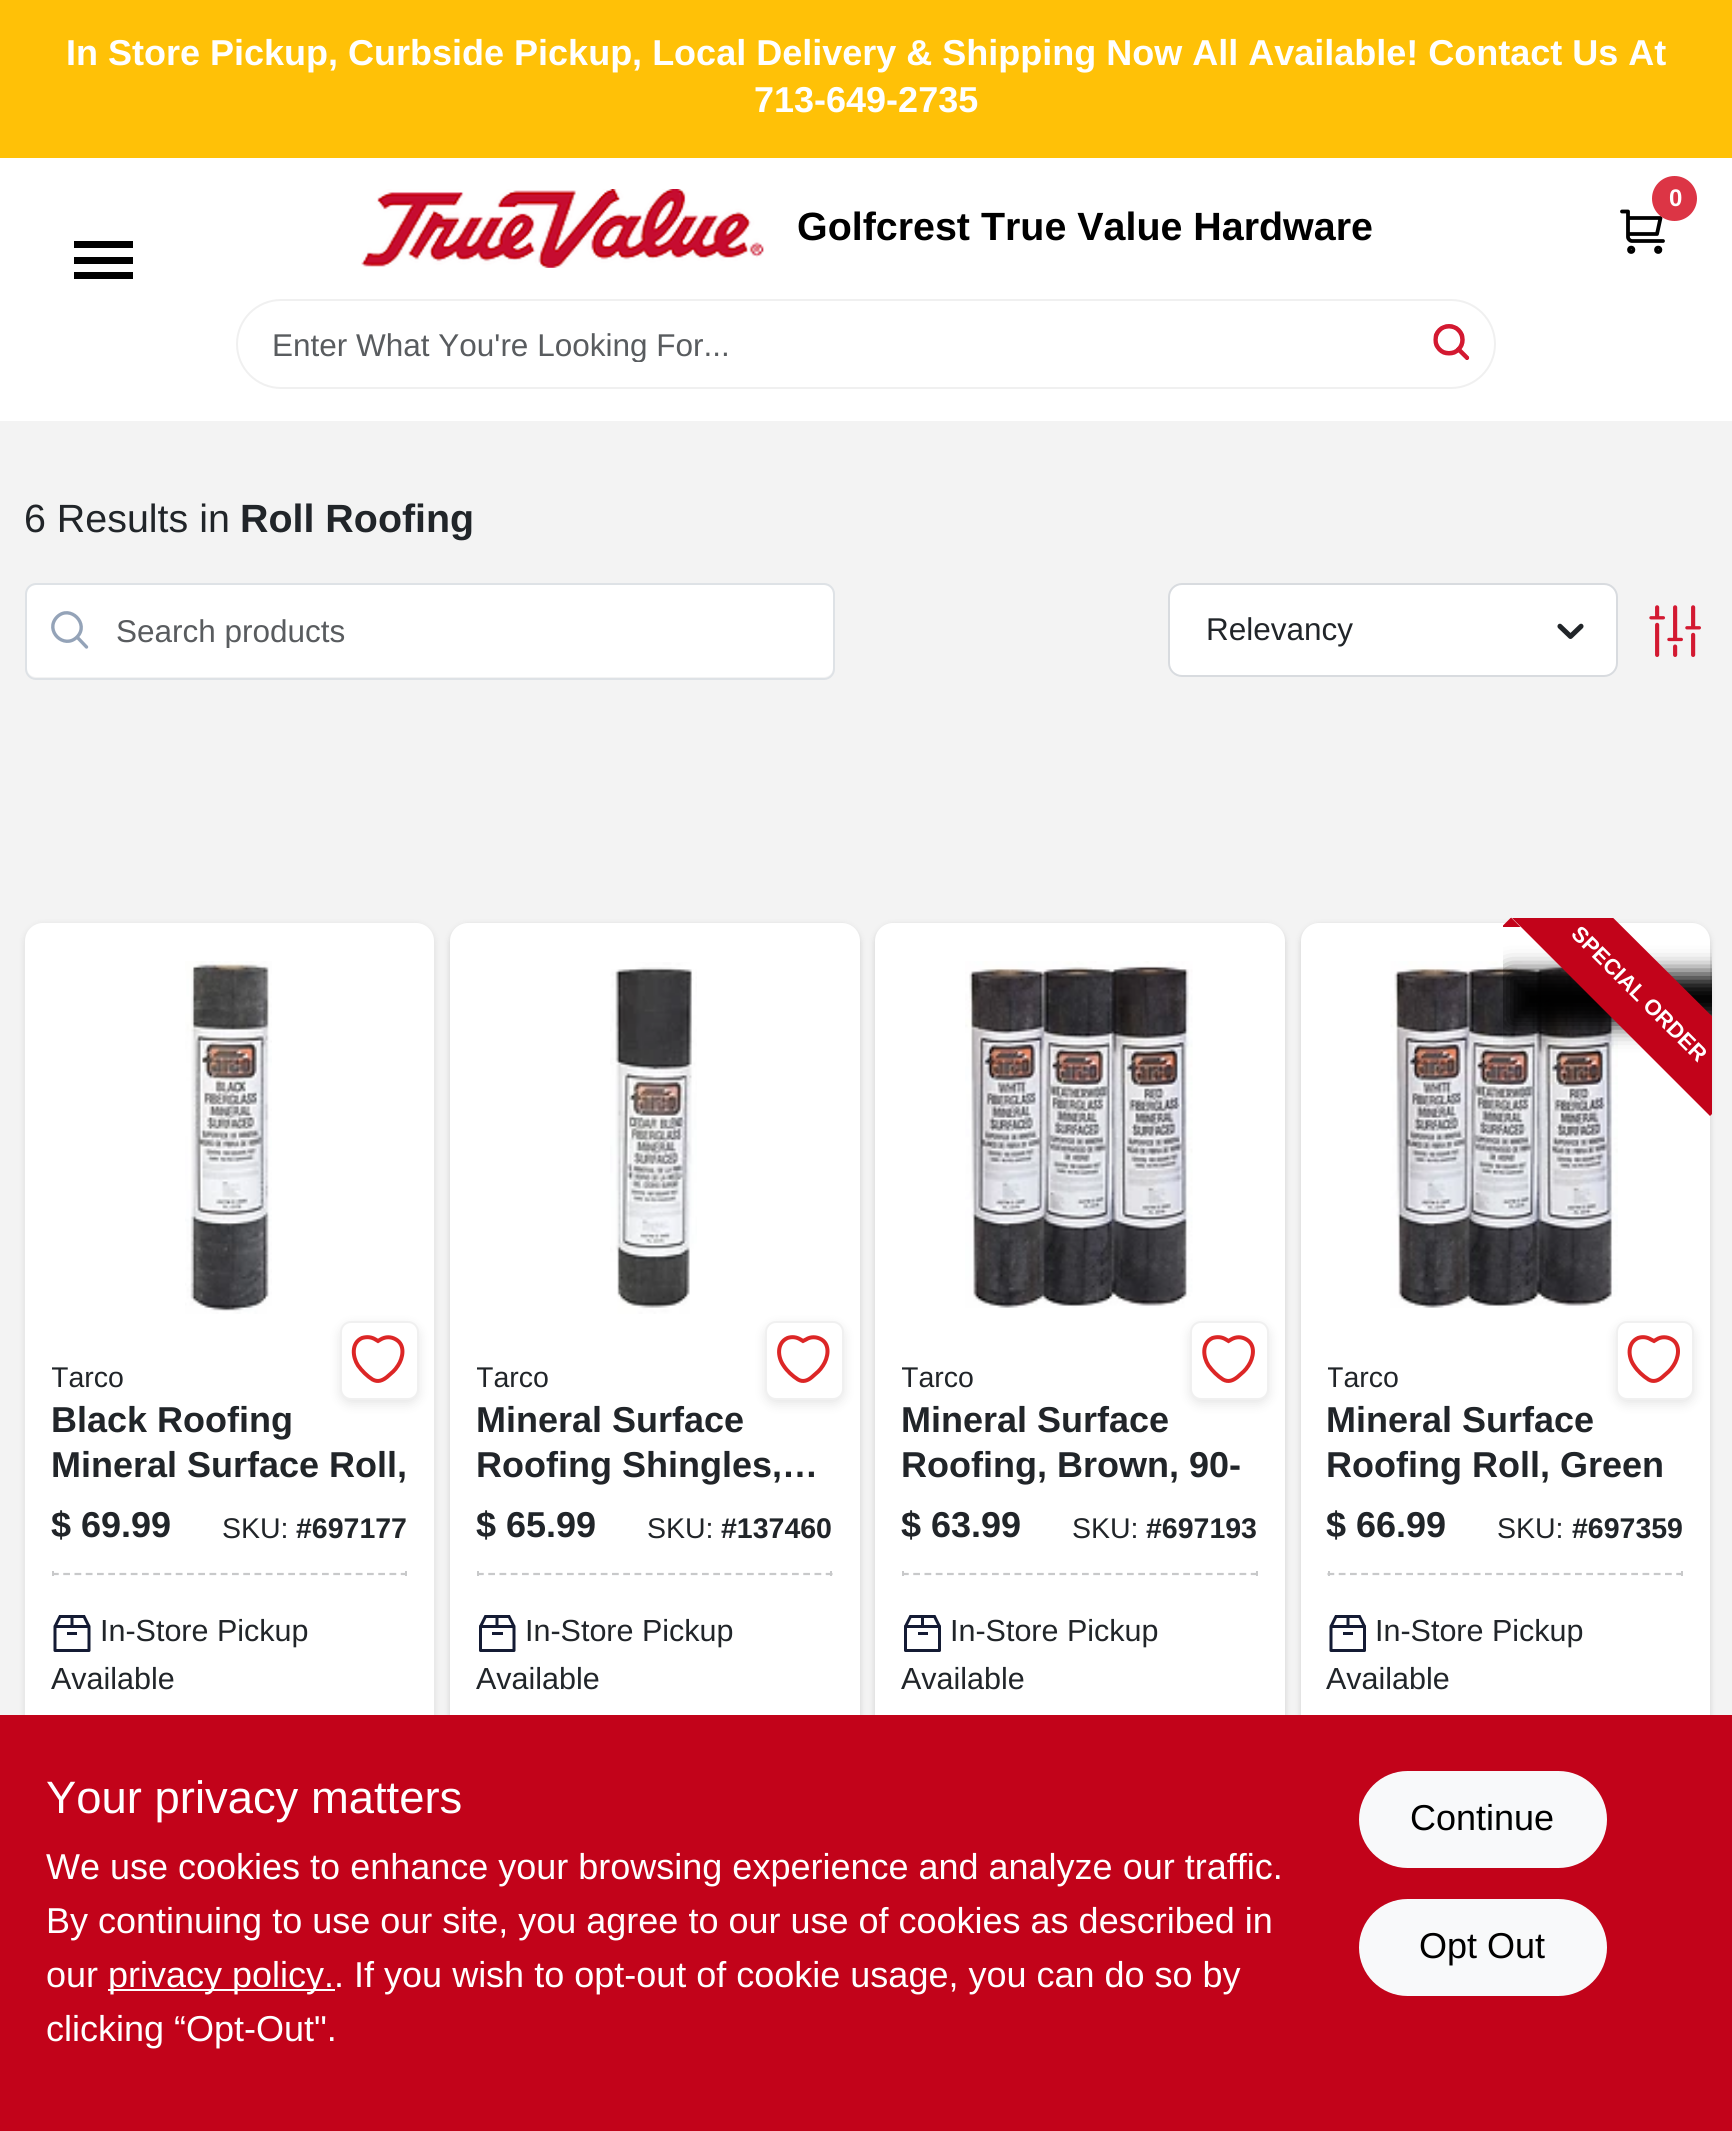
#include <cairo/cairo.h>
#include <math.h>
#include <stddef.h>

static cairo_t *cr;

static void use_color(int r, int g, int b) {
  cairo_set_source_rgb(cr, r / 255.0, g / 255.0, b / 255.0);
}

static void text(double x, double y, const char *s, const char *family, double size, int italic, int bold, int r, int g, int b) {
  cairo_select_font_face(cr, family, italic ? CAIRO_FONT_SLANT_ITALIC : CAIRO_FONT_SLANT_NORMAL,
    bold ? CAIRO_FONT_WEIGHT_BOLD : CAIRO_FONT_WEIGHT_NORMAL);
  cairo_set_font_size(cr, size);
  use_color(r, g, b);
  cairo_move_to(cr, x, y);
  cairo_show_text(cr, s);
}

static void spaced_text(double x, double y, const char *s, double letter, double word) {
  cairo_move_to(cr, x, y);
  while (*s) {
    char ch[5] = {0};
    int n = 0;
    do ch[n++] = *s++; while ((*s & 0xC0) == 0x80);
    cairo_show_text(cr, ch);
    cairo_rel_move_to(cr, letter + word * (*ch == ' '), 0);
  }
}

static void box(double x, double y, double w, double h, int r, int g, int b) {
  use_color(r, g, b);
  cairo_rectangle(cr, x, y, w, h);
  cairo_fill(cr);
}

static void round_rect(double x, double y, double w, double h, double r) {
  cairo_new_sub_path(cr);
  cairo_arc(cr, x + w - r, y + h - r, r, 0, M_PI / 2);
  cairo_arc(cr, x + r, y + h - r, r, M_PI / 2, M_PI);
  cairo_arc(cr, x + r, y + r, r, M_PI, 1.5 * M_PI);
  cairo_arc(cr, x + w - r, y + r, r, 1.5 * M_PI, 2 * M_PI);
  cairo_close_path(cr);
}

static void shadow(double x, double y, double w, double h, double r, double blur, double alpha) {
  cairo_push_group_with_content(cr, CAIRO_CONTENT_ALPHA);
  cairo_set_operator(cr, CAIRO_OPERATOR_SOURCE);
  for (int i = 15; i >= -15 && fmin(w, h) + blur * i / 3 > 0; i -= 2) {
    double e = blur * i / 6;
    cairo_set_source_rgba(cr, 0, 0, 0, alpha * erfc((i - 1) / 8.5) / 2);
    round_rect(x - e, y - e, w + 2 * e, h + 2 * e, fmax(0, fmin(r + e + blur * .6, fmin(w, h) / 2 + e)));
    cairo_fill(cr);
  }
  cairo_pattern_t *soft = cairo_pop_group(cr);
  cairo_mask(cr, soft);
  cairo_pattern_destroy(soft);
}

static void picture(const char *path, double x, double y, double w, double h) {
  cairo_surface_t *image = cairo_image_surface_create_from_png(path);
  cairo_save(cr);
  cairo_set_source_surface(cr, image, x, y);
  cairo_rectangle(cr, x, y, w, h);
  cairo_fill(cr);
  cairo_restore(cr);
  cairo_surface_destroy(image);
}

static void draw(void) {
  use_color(243, 243, 243);
  cairo_paint(cr);
  box(0, 0, 1732, 158, 255, 193, 7);
  box(0, 158, 1732, 263, 255, 255, 255);
  cairo_new_path(cr);
  cairo_move_to(cr, 1622, 211.5);
  cairo_line_to(cr, 1628, 211.5);
  cairo_line_to(cr, 1628, 237);
  cairo_curve_to(cr, 1628, 239, 1630, 241, 1632, 241);
  cairo_line_to(cr, 1663, 241);
  cairo_move_to(cr, 1629, 218);
  cairo_line_to(cr, 1660.5, 218);
  cairo_line_to(cr, 1657, 234);
  cairo_line_to(cr, 1629, 234);
  use_color(0, 0, 0);
  cairo_set_line_width(cr, 3.8);
  cairo_set_line_cap(cr, CAIRO_LINE_CAP_ROUND);
  cairo_set_line_join(cr, CAIRO_LINE_JOIN_ROUND);
  cairo_stroke(cr);
  use_color(220, 53, 69);
  cairo_arc(cr, 1674.5, 198.5, 22.5, 0, 2 * M_PI);
  cairo_fill(cr);
  cairo_arc(cr, 1631.2, 249.8, 2.2, 0, 2 * M_PI);
  use_color(0, 0, 0);
  cairo_set_line_cap(cr, CAIRO_LINE_CAP_BUTT);
  cairo_set_line_join(cr, CAIRO_LINE_JOIN_MITER);
  cairo_stroke(cr);
  cairo_arc(cr, 1658.2, 249.8, 2.2, 0, 2 * M_PI);
  cairo_stroke(cr);
  picture("img_01.png", 361, 189, 403, 79);
  box(74, 241, 59, 7, 0, 0, 0);
  box(74, 257, 59, 7, 0, 0, 0);
  box(74, 272, 59, 7, 0, 0, 0);
  round_rect(237, 300, 1258, 88, 44);
  use_color(240, 240, 240);
  cairo_set_line_width(cr, 2);
  cairo_stroke(cr);
  picture("img_02.png", 1433, 324, 37, 36);
  use_color(255, 255, 255);
  round_rect(27, 585, 806, 92, 9);
  cairo_fill(cr);
  cairo_new_path(cr);
  cairo_move_to(cr, 86.5, 647);
  cairo_line_to(cr, 77, 637);
  cairo_move_to(cr, 77, 637);
  cairo_curve_to(cr, 90, 624, 70, 604, 57, 617);
  cairo_curve_to(cr, 44, 630.5, 64, 650, 77, 637);
  cairo_close_path(cr);
  use_color(148, 163, 184);
  cairo_set_line_width(cr, 3.4);
  cairo_set_line_cap(cr, CAIRO_LINE_CAP_ROUND);
  cairo_set_line_join(cr, CAIRO_LINE_JOIN_ROUND);
  cairo_stroke(cr);
  round_rect(26, 584, 808, 95, 10);
  use_color(222, 226, 230);
  cairo_set_line_width(cr, 2);
  cairo_set_line_cap(cr, CAIRO_LINE_CAP_BUTT);
  cairo_set_line_join(cr, CAIRO_LINE_JOIN_MITER);
  cairo_stroke(cr);
  use_color(255, 255, 255);
  round_rect(1169, 584, 448, 92, 13);
  cairo_fill_preserve(cr);
  use_color(216, 219, 223);
  cairo_stroke(cr);
  picture("img_03.png", 1557, 623, 27, 16);
  picture("img_04.png", 1649, 605, 52, 52);
  use_color(0, 0, 0);
  shadow(25, 925, 409, 1073, 18, 3.5, 0.1);
  use_color(255, 255, 255);
  round_rect(25, 923, 409, 1073, 18);
  cairo_fill(cr);
  picture("img_05.png", 185, 961, 87, 353);
  use_color(0, 0, 0);
  shadow(340, 1325, 79, 79, 11, 5.5, 0.1);
  use_color(255, 255, 255);
  round_rect(341, 1322, 77, 77, 10);
  cairo_fill_preserve(cr);
  use_color(240, 240, 240);
  cairo_stroke(cr);
  cairo_new_path(cr);
  cairo_move_to(cr, 396, 1339.5);
  cairo_curve_to(cr, 391, 1336.5, 385.5, 1336.5, 380.5, 1339.5);
  cairo_line_to(cr, 378, 1341);
  cairo_line_to(cr, 375.5, 1339.5);
  cairo_curve_to(cr, 371.5, 1337, 367, 1336.5, 362, 1338);
  cairo_curve_to(cr, 351, 1343, 352.5, 1357, 358, 1365.5);
  cairo_curve_to(cr, 362, 1371, 367, 1376, 372.5, 1379.5);
  cairo_curve_to(cr, 378, 1382.5, 382.5, 1380.5, 387, 1377);
  cairo_curve_to(cr, 392, 1372.5, 394.5, 1371, 398, 1365.5);
  cairo_curve_to(cr, 403, 1358, 405.5, 1345, 396, 1339.5);
  cairo_close_path(cr);
  use_color(220, 38, 38);
  cairo_set_line_width(cr, 4);
  cairo_set_line_cap(cr, CAIRO_LINE_CAP_ROUND);
  cairo_stroke(cr);
  box(405, 1571, 2, 5, 200, 201, 202);
  cairo_new_path(cr);
  cairo_move_to(cr, 52, 1574);
  cairo_line_to(cr, 407, 1574);
  cairo_set_line_width(cr, 2.2);
  cairo_set_line_cap(cr, CAIRO_LINE_CAP_BUTT);
  cairo_set_dash(cr, (double[]){6.75, 4.5}, 2, 0);
  cairo_stroke(cr);
  box(52, 1571, 2, 5, 200, 201, 202);
  cairo_new_path(cr);
  cairo_move_to(cr, 55, 1650.5);
  cairo_line_to(cr, 55, 1626.5);
  cairo_line_to(cr, 89, 1626.5);
  cairo_line_to(cr, 89, 1650.5);
  cairo_close_path(cr);
  use_color(20, 27, 52);
  cairo_set_line_width(cr, 3);
  cairo_set_line_cap(cr, CAIRO_LINE_CAP_ROUND);
  cairo_set_line_join(cr, CAIRO_LINE_JOIN_ROUND);
  cairo_set_dash(cr, NULL, 0, 0);
  cairo_stroke(cr);
  cairo_new_path(cr);
  cairo_move_to(cr, 55, 1626.5);
  cairo_line_to(cr, 60, 1616.5);
  cairo_line_to(cr, 84, 1616.5);
  cairo_line_to(cr, 89, 1626.5);
  cairo_move_to(cr, 72, 1626.5);
  cairo_line_to(cr, 72, 1616.5);
  cairo_set_line_cap(cr, CAIRO_LINE_CAP_BUTT);
  cairo_set_line_join(cr, CAIRO_LINE_JOIN_MITER);
  cairo_stroke(cr);
  box(67, 1632, 10, 3, 20, 27, 52);
  use_color(0, 0, 0);
  shadow(450, 925, 410, 1073, 18, 2, 0.06);
  shadow(450, 925, 410, 1073, 18, 3.5, 0.1);
  use_color(255, 255, 255);
  round_rect(450, 923, 410, 1073, 18);
  cairo_fill(cr);
  picture("img_06.png", 610, 962, 87, 352);
  use_color(0, 0, 0);
  shadow(765, 1325, 79, 79, 11, 5.5, 0.1);
  use_color(255, 255, 255);
  round_rect(766, 1322, 77, 77, 10);
  cairo_fill_preserve(cr);
  use_color(240, 240, 240);
  cairo_set_line_width(cr, 2);
  cairo_stroke(cr);
  cairo_new_path(cr);
  cairo_move_to(cr, 821.5, 1339.5);
  cairo_curve_to(cr, 816.5, 1336.5, 810.5, 1336.5, 806, 1339.5);
  cairo_line_to(cr, 803, 1341);
  cairo_line_to(cr, 800.5, 1339.5);
  cairo_curve_to(cr, 796.5, 1337, 792, 1336.5, 787.5, 1338);
  cairo_curve_to(cr, 776.5, 1343, 777.5, 1357, 783.5, 1365.5);
  cairo_curve_to(cr, 787, 1371, 792.5, 1376, 798, 1379.5);
  cairo_curve_to(cr, 803, 1382.5, 808, 1380.5, 812, 1377);
  cairo_curve_to(cr, 817, 1372.5, 819.5, 1371, 823, 1365.5);
  cairo_curve_to(cr, 828, 1358, 830.5, 1345, 821.5, 1339.5);
  cairo_close_path(cr);
  use_color(220, 38, 38);
  cairo_set_line_width(cr, 4);
  cairo_set_line_cap(cr, CAIRO_LINE_CAP_ROUND);
  cairo_stroke(cr);
  box(830, 1571, 2, 5, 200, 201, 202);
  cairo_new_path(cr);
  cairo_move_to(cr, 477, 1574);
  cairo_line_to(cr, 832.5, 1574);
  cairo_set_line_width(cr, 2.2);
  cairo_set_line_cap(cr, CAIRO_LINE_CAP_BUTT);
  cairo_set_dash(cr, (double[]){6.75, 4.5}, 2, 0);
  cairo_stroke(cr);
  box(477, 1571, 2, 5, 200, 201, 202);
  cairo_new_path(cr);
  cairo_move_to(cr, 480.5, 1650.5);
  cairo_line_to(cr, 480.5, 1626.5);
  cairo_line_to(cr, 514, 1626.5);
  cairo_line_to(cr, 514, 1650.5);
  cairo_close_path(cr);
  use_color(20, 27, 52);
  cairo_set_line_width(cr, 3);
  cairo_set_line_cap(cr, CAIRO_LINE_CAP_ROUND);
  cairo_set_line_join(cr, CAIRO_LINE_JOIN_ROUND);
  cairo_set_dash(cr, NULL, 0, 0);
  cairo_stroke(cr);
  cairo_new_path(cr);
  cairo_move_to(cr, 480.5, 1626.5);
  cairo_line_to(cr, 485.5, 1616.5);
  cairo_line_to(cr, 509, 1616.5);
  cairo_line_to(cr, 514, 1626.5);
  cairo_move_to(cr, 497, 1626.5);
  cairo_line_to(cr, 497, 1616.5);
  cairo_set_line_cap(cr, CAIRO_LINE_CAP_BUTT);
  cairo_set_line_join(cr, CAIRO_LINE_JOIN_MITER);
  cairo_stroke(cr);
  box(492, 1632, 11, 3, 20, 27, 52);
  use_color(0, 0, 0);
  shadow(875, 925, 410, 1073, 18, 2, 0.06);
  shadow(875, 925, 410, 1073, 18, 3.5, 0.1);
  use_color(255, 255, 255);
  round_rect(875, 923, 410, 1073, 18);
  cairo_fill(cr);
  picture("img_07.png", 965, 961, 228, 347);
  use_color(0, 0, 0);
  shadow(1190, 1325, 79, 79, 11, 5.5, 0.1);
  use_color(255, 255, 255);
  round_rect(1191, 1322, 77, 77, 10);
  cairo_fill_preserve(cr);
  use_color(240, 240, 240);
  cairo_set_line_width(cr, 2);
  cairo_stroke(cr);
  cairo_new_path(cr);
  cairo_move_to(cr, 1246.5, 1339.5);
  cairo_curve_to(cr, 1241.5, 1336.5, 1236, 1336.5, 1231, 1339.5);
  cairo_line_to(cr, 1228.5, 1341);
  cairo_line_to(cr, 1226, 1339.5);
  cairo_curve_to(cr, 1222, 1337, 1217.5, 1336.5, 1212.5, 1338);
  cairo_curve_to(cr, 1201.5, 1343, 1203, 1357, 1208.5, 1365.5);
  cairo_curve_to(cr, 1212.5, 1371, 1217.5, 1376, 1223, 1379.5);
  cairo_curve_to(cr, 1228.5, 1382.5, 1233, 1380.5, 1237.5, 1377);
  cairo_curve_to(cr, 1242.5, 1372.5, 1245, 1371, 1248.5, 1365.5);
  cairo_curve_to(cr, 1253.5, 1358, 1256, 1345, 1246.5, 1339.5);
  cairo_close_path(cr);
  use_color(220, 38, 38);
  cairo_set_line_width(cr, 4);
  cairo_set_line_cap(cr, CAIRO_LINE_CAP_ROUND);
  cairo_stroke(cr);
  box(1256, 1571, 2, 5, 200, 201, 202);
  cairo_new_path(cr);
  cairo_move_to(cr, 902, 1574);
  cairo_line_to(cr, 1258, 1574);
  cairo_set_line_width(cr, 2.2);
  cairo_set_line_cap(cr, CAIRO_LINE_CAP_BUTT);
  cairo_set_dash(cr, (double[]){6.75, 4.5}, 2, 0);
  cairo_stroke(cr);
  box(902, 1571, 2, 5, 200, 201, 202);
  cairo_new_path(cr);
  cairo_move_to(cr, 905.5, 1650.5);
  cairo_line_to(cr, 905.5, 1626.5);
  cairo_line_to(cr, 939.5, 1626.5);
  cairo_line_to(cr, 939.5, 1650.5);
  cairo_close_path(cr);
  use_color(20, 27, 52);
  cairo_set_line_width(cr, 3);
  cairo_set_line_cap(cr, CAIRO_LINE_CAP_ROUND);
  cairo_set_line_join(cr, CAIRO_LINE_JOIN_ROUND);
  cairo_set_dash(cr, NULL, 0, 0);
  cairo_stroke(cr);
  cairo_new_path(cr);
  cairo_move_to(cr, 905.5, 1626.5);
  cairo_line_to(cr, 910.5, 1616.5);
  cairo_line_to(cr, 934.5, 1616.5);
  cairo_line_to(cr, 939.5, 1626.5);
  cairo_set_line_cap(cr, CAIRO_LINE_CAP_BUTT);
  cairo_set_line_join(cr, CAIRO_LINE_JOIN_MITER);
  cairo_stroke(cr);
  box(921, 1617, 3, 10, 20, 27, 52);
  box(918, 1632, 10, 3, 20, 27, 52);
  use_color(0, 0, 0);
  shadow(1301, 925, 409, 1073, 18, 2, 0.06);
  shadow(1301, 925, 409, 1073, 18, 3.5, 0.1);
  use_color(255, 255, 255);
  round_rect(1301, 923, 409, 1073, 18);
  cairo_fill(cr);
  picture("img_08.png", 1390, 961, 228, 347);
  cairo_save(cr);
  cairo_rectangle(cr, 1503, 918, 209, 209);
  cairo_clip(cr);
  use_color(0, 0, 0);
  shadow(1508, 974, 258, 50, 0, 11.5, 1);
  cairo_restore(cr);
  cairo_save(cr);
  cairo_rectangle(cr, 1503, 918, 209, 209);
  cairo_clip(cr);
  use_color(194, 3, 26);
  cairo_new_path(cr);
  cairo_move_to(cr, 1562, 867);
  cairo_line_to(cr, 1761, 1065);
  cairo_line_to(cr, 1710, 1116);
  cairo_line_to(cr, 1511, 917);
  cairo_close_path(cr);
  cairo_fill(cr);
  cairo_restore(cr);
  use_color(194, 3, 26);
  cairo_new_path(cr);
  cairo_move_to(cr, 1511, 917.5);
  cairo_line_to(cr, 1520.5, 927);
  cairo_line_to(cr, 1511, 927);
  cairo_close_path(cr);
  cairo_fill(cr);
  cairo_save(cr);
  cairo_rectangle(cr, 1503, 918, 209, 209);
  cairo_clip(cr);
  cairo_new_path(cr);
  cairo_move_to(cr, 1501.5, 927);
  cairo_line_to(cr, 1511, 917.5);
  cairo_line_to(cr, 1511, 927);
  cairo_close_path(cr);
  cairo_fill(cr);
  cairo_restore(cr);
  use_color(0, 0, 0);
  shadow(1616, 1325, 78, 79, 11, 5.5, 0.1);
  use_color(255, 255, 255);
  round_rect(1617, 1322, 76, 77, 10);
  cairo_fill_preserve(cr);
  use_color(240, 240, 240);
  cairo_set_line_width(cr, 2);
  cairo_stroke(cr);
  cairo_new_path(cr);
  cairo_move_to(cr, 1672, 1339.5);
  cairo_curve_to(cr, 1667, 1336.5, 1661, 1336.5, 1656.5, 1339.5);
  cairo_line_to(cr, 1654, 1341);
  cairo_line_to(cr, 1651, 1339.5);
  cairo_curve_to(cr, 1647, 1337, 1642.5, 1336.5, 1638, 1338);
  cairo_curve_to(cr, 1627, 1343, 1628, 1357, 1634, 1365.5);
  cairo_curve_to(cr, 1637.5, 1371, 1643, 1376, 1648.5, 1379.5);
  cairo_curve_to(cr, 1653.5, 1382.5, 1658.5, 1380.5, 1662.5, 1377);
  cairo_curve_to(cr, 1667.5, 1372.5, 1670, 1371, 1673.5, 1365.5);
  cairo_curve_to(cr, 1678.5, 1358, 1681, 1345, 1672, 1339.5);
  cairo_close_path(cr);
  use_color(220, 38, 38);
  cairo_set_line_width(cr, 4);
  cairo_set_line_cap(cr, CAIRO_LINE_CAP_ROUND);
  cairo_stroke(cr);
  box(1681, 1571, 2, 5, 200, 201, 202);
  cairo_new_path(cr);
  cairo_move_to(cr, 1327.5, 1574);
  cairo_line_to(cr, 1683, 1574);
  cairo_set_line_width(cr, 2.2);
  cairo_set_line_cap(cr, CAIRO_LINE_CAP_BUTT);
  cairo_set_dash(cr, (double[]){6.75, 4.5}, 2, 0);
  cairo_stroke(cr);
  box(1328, 1571, 2, 5, 200, 201, 202);
  cairo_new_path(cr);
  cairo_move_to(cr, 1331, 1650.5);
  cairo_line_to(cr, 1331, 1626.5);
  cairo_line_to(cr, 1364.5, 1626.5);
  cairo_line_to(cr, 1364.5, 1650.5);
  cairo_close_path(cr);
  use_color(20, 27, 52);
  cairo_set_line_width(cr, 3);
  cairo_set_line_cap(cr, CAIRO_LINE_CAP_ROUND);
  cairo_set_line_join(cr, CAIRO_LINE_JOIN_ROUND);
  cairo_set_dash(cr, NULL, 0, 0);
  cairo_stroke(cr);
  cairo_new_path(cr);
  cairo_move_to(cr, 1331, 1626.5);
  cairo_line_to(cr, 1336, 1616.5);
  cairo_line_to(cr, 1359.5, 1616.5);
  cairo_line_to(cr, 1364.5, 1626.5);
  cairo_move_to(cr, 1348, 1626.5);
  cairo_line_to(cr, 1348, 1616.5);
  cairo_set_line_cap(cr, CAIRO_LINE_CAP_BUTT);
  cairo_set_line_join(cr, CAIRO_LINE_JOIN_MITER);
  cairo_stroke(cr);
  box(1343, 1632, 10, 3, 20, 27, 52);
  box(0, 1715, 1732, 416, 194, 3, 26);
  box(108, 1989, 227, 2, 255, 255, 255);
  use_color(248, 249, 250);
  round_rect(1360, 1772, 246, 95, 47.5);
  cairo_fill_preserve(cr);
  cairo_set_line_width(cr, 2);
  cairo_stroke(cr);
  round_rect(1360, 1900, 246, 95, 47.5);
  cairo_fill_preserve(cr);
  cairo_stroke(cr);
  text(66, 65, "In Store Pickup, Curbside Pickup, Local Delivery & Shipping Now All Available! Contact Us At", "Liberation Sans", 36, 0, 1, 255, 255, 255);
  text(754, 112, "713-649-2735", "Liberation Sans", 36, 0, 1, 255, 255, 255);
  cairo_set_font_size(cr, 24);
  spaced_text(1669, 206, "0", -2, 0);
  text(797, 240, "Golfcrest True Value Hardware", "Liberation Sans", 39.4, 0, 1, 0, 0, 0);
  cairo_save(cr);
  cairo_rectangle(cr, 272, 326, 1188, 36);
  cairo_clip(cr);
  text(272, 356, "Enter What You're Looking For...", "Liberation Sans", 31.5, 0, 0, 89, 92, 95);
  cairo_restore(cr);
  text(24, 532, "6 Results in", "Liberation Sans", 39.4, 0, 0, 33, 37, 41);
  text(240, 532, "Roll Roofing", "Liberation Sans", 39.4, 0, 1, 33, 37, 41);
  cairo_save(cr);
  cairo_rectangle(cr, 117, 612, 650, 36);
  cairo_clip(cr);
  text(116, 642, "Search products", "Liberation Sans", 31.5, 0, 0, 89, 92, 95);
  cairo_restore(cr);
  text(1206, 640, "Relevancy", "Liberation Sans", 31.5, 0, 0, 33, 37, 41);
  cairo_save(cr);
  cairo_rectangle(cr, 52, 1364, 355, 123);
  cairo_clip(cr);
  text(51, 1387, "Tarco", "Liberation Sans", 28.5, 0, 0, 33, 37, 41);
  cairo_restore(cr);
  text(51, 1432, "Black Roofing", "Liberation Sans", 36, 0, 1, 33, 37, 41);
  text(51, 1477, "Mineral Surface Roll,", "Liberation Sans", 36, 0, 1, 33, 37, 41);
  text(51, 1537, "$ 69.99", "Liberation Sans", 36, 0, 1, 33, 37, 41);
  text(222, 1538, "SKU:", "Liberation Sans", 28.5, 0, 0, 33, 37, 41);
  text(296, 1538, "#697177", "Liberation Sans", 28.5, 0, 1, 33, 37, 41);
  text(100, 1641, "In-Store Pickup", "Liberation Sans", 30.5, 0, 0, 33, 37, 41);
  text(51, 1689, "Available", "Liberation Sans", 30.5, 0, 0, 33, 37, 41);
  cairo_save(cr);
  cairo_rectangle(cr, 477, 1364, 356, 123);
  cairo_clip(cr);
  text(476, 1387, "Tarco", "Liberation Sans", 28.5, 0, 0, 33, 37, 41);
  cairo_restore(cr);
  text(476, 1432, "Mineral Surface", "Liberation Sans", 36, 0, 1, 33, 37, 41);
  text(476, 1477, "Roofing Shingles,…", "Liberation Sans", 36, 0, 1, 33, 37, 41);
  text(476, 1537, "$ 65.99", "Liberation Sans", 36, 0, 1, 33, 37, 41);
  text(647, 1538, "SKU:", "Liberation Sans", 28.5, 0, 0, 33, 37, 41);
  text(721, 1538, "#137460", "Liberation Sans", 28.5, 0, 1, 33, 37, 41);
  text(525, 1641, "In-Store Pickup", "Liberation Sans", 30.5, 0, 0, 33, 37, 41);
  text(476, 1689, "Available", "Liberation Sans", 30.5, 0, 0, 33, 37, 41);
  cairo_save(cr);
  cairo_rectangle(cr, 902, 1364, 356, 123);
  cairo_clip(cr);
  text(901, 1387, "Tarco", "Liberation Sans", 28.5, 0, 0, 33, 37, 41);
  cairo_restore(cr);
  text(901, 1432, "Mineral Surface", "Liberation Sans", 36, 0, 1, 33, 37, 41);
  text(901, 1477, "Roofing, Brown, 90-", "Liberation Sans", 36, 0, 1, 33, 37, 41);
  text(901, 1537, "$ 63.99", "Liberation Sans", 36, 0, 1, 33, 37, 41);
  text(1072, 1538, "SKU:", "Liberation Sans", 28.5, 0, 0, 33, 37, 41);
  text(1146, 1538, "#697193", "Liberation Sans", 28.5, 0, 1, 33, 37, 41);
  text(950, 1641, "In-Store Pickup", "Liberation Sans", 30.5, 0, 0, 33, 37, 41);
  text(901, 1689, "Available", "Liberation Sans", 30.5, 0, 0, 33, 37, 41);
  cairo_save(cr);
  cairo_translate(cr, 1570, 935);
  cairo_rotate(cr, 45 * M_PI / 180);
  text(0, 0, "SPECIAL ORDER", "Liberation Sans", 22, 0, 1, 255, 255, 255);
  cairo_restore(cr);
  cairo_save(cr);
  cairo_rectangle(cr, 1328, 1364, 355, 123);
  cairo_clip(cr);
  text(1326, 1387, "Tarco", "Liberation Sans", 28.5, 0, 0, 33, 37, 41);
  cairo_restore(cr);
  text(1326, 1432, "Mineral Surface", "Liberation Sans", 36, 0, 1, 33, 37, 41);
  text(1326, 1477, "Roofing Roll, Green", "Liberation Sans", 36, 0, 1, 33, 37, 41);
  text(1326, 1537, "$ 66.99", "Liberation Sans", 36, 0, 1, 33, 37, 41);
  text(1497, 1538, "SKU:", "Liberation Sans", 28.5, 0, 0, 33, 37, 41);
  text(1572, 1538, "#697359", "Liberation Sans", 28.5, 0, 1, 33, 37, 41);
  text(1375, 1641, "In-Store Pickup", "Liberation Sans", 30.5, 0, 0, 33, 37, 41);
  text(1326, 1689, "Available", "Liberation Sans", 30.5, 0, 0, 33, 37, 41);
  text(46, 1813, "Your privacy matters", "Liberation Sans", 45.4, 0, 0, 255, 255, 255);
  text(46, 1879, "We use cookies to enhance your browsing experience and analyze our traffic.", "Liberation Sans", 36, 0, 0, 255, 255, 255);
  text(46, 1933, "By continuing to use our site, you agree to our use of cookies as described in", "Liberation Sans", 36, 0, 0, 255, 255, 255);
  text(46, 1987, "our", "Liberation Sans", 36, 0, 0, 255, 255, 255);
  text(108, 1987, "privacy policy.. If you wish to opt-out of cookie usage, you can do so by", "Liberation Sans", 36, 0, 0, 255, 255, 255);
  text(46, 2041, "clicking “Opt-Out\".", "Liberation Sans", 36, 0, 0, 255, 255, 255);
  text(1410, 1830, "Continue", "Liberation Sans", 36, 0, 0, 0, 0, 0);
  text(1419, 1958, "Opt Out", "Liberation Sans", 36, 0, 0, 0, 0, 0);
}

int main(void) {
  cairo_surface_t *surface = cairo_image_surface_create(CAIRO_FORMAT_RGB24, 1732, 2131);
  cr = cairo_create(surface);
  cairo_font_options_t *options = cairo_font_options_create();
  cairo_font_options_set_hint_metrics(options, CAIRO_HINT_METRICS_OFF);
  cairo_font_options_set_hint_style(options, CAIRO_HINT_STYLE_NONE);
  cairo_set_font_options(cr, options);
  cairo_set_miter_limit(cr, 4);
  draw();
  cairo_surface_write_to_png(surface, "out.png");
  cairo_font_options_destroy(options);
  cairo_destroy(cr);
  cairo_surface_destroy(surface);
  return 0;
}
